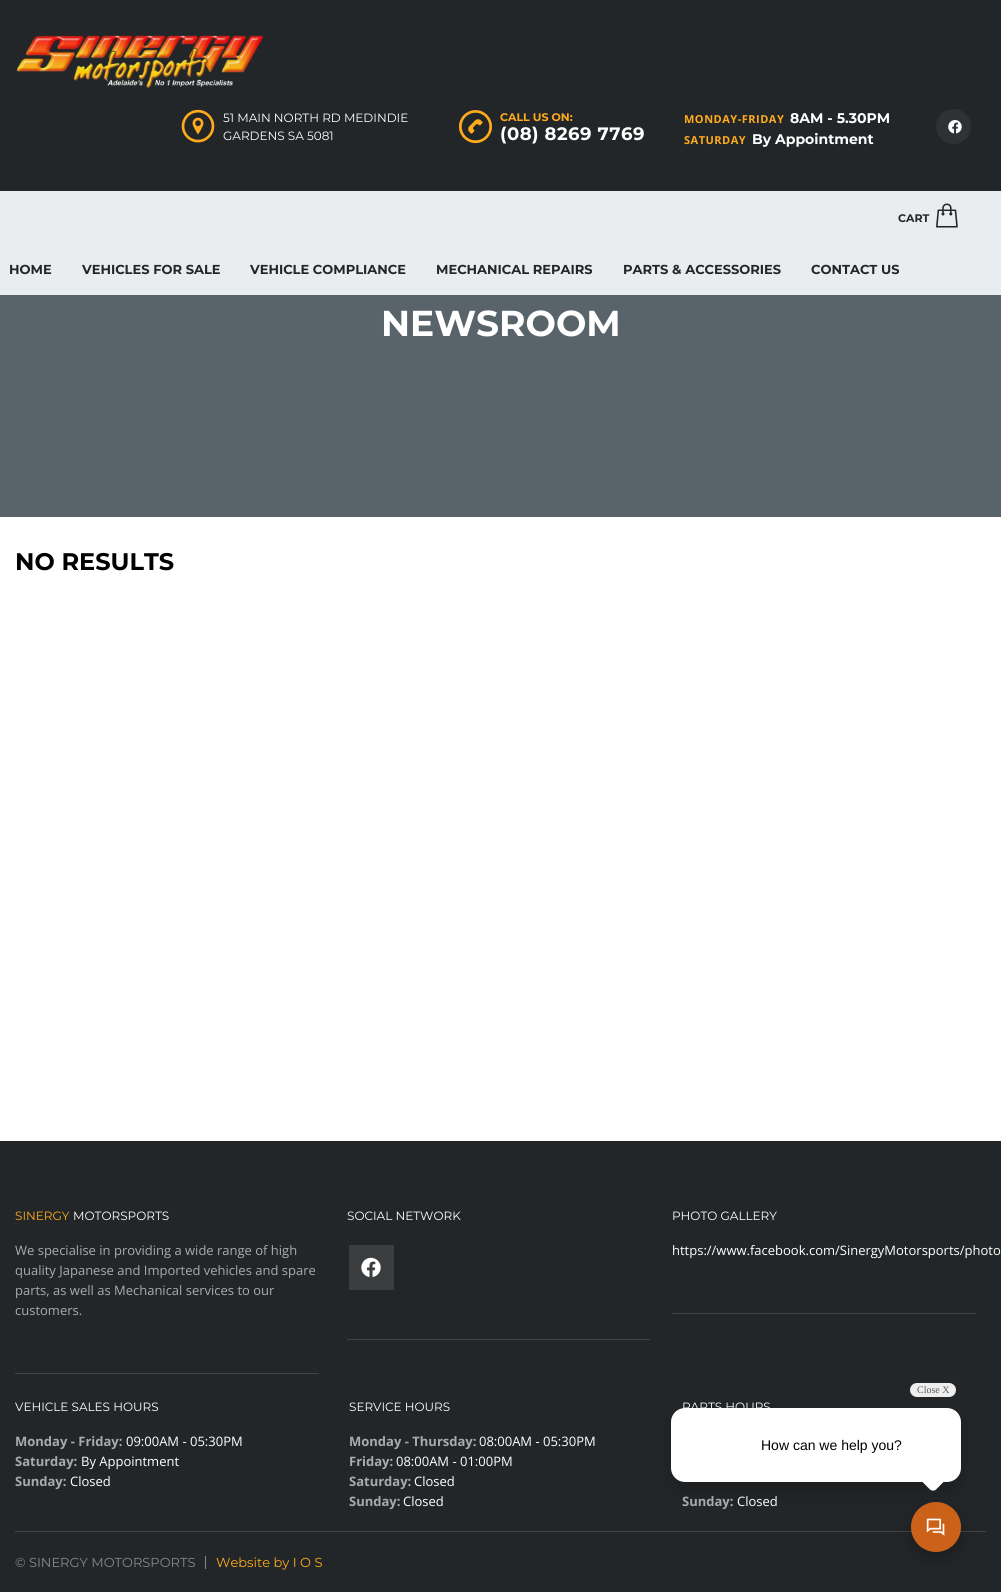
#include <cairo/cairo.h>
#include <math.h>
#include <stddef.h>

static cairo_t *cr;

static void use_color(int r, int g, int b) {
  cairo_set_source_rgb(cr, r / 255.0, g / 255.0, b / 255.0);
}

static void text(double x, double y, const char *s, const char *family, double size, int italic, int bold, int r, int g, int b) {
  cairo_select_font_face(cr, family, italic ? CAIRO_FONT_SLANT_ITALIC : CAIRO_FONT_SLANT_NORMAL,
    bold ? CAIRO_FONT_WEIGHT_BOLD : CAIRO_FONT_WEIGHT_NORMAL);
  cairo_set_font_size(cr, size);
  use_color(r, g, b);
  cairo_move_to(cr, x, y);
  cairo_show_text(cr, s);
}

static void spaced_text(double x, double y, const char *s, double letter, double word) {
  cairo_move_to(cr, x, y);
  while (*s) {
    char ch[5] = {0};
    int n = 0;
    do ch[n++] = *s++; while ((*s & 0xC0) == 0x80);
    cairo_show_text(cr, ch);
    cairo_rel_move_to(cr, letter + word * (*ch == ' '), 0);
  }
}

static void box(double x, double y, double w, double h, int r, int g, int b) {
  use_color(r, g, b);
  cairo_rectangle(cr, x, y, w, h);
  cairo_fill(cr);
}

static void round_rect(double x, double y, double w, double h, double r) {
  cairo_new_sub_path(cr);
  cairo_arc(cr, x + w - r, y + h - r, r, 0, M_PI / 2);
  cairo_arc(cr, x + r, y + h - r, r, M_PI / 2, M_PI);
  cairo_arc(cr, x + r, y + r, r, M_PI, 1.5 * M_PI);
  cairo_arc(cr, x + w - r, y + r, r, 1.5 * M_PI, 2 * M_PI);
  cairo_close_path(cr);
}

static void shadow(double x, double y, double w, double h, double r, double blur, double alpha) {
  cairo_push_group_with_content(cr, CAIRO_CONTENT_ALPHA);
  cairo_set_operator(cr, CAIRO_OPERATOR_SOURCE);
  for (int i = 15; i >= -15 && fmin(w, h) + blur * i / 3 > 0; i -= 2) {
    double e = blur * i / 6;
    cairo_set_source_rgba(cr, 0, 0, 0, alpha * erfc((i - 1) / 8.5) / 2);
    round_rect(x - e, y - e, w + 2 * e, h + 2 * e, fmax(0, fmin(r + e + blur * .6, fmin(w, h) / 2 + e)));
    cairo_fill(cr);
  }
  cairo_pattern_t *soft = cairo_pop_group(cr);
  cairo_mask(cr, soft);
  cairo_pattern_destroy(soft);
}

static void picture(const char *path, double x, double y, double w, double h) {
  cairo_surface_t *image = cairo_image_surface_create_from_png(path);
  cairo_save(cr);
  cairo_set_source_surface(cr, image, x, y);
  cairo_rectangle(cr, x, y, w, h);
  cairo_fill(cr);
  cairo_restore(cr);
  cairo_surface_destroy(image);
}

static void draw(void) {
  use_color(255, 255, 255);
  cairo_paint(cr);
  box(0, 0, 1001, 191, 35, 38, 40);
  picture("img_01.png", 16, 35, 248, 54);
  picture("img_02.png", 181, 109, 34, 34);
  picture("img_03.png", 459, 110, 33, 34);
  use_color(47, 50, 52);
  cairo_arc(cr, 953.5, 126.5, 17.5, 0, 2 * M_PI);
  cairo_fill(cr);
  picture("img_04.png", 948, 120, 14, 14);
  box(0, 191, 1001, 104, 234, 237, 240);
  picture("img_05.png", 936, 203, 22, 25);
  box(0, 295, 1001, 222, 89, 99, 106);
  box(0, 1141, 1001, 451, 35, 38, 40);
  box(15, 1373, 304, 1, 68, 68, 68);
  box(347, 1339, 303, 1, 68, 68, 68);
  box(349, 1245, 45, 45, 59, 61, 63);
  picture("img_06.png", 361, 1257, 20, 20);
  box(672, 1313, 304, 1, 68, 68, 68);
  box(15, 1531, 971, 1, 68, 68, 68);
  box(205, 1556, 1, 13, 136, 136, 136);
  use_color(0, 0, 0);
  shadow(911, 1510, 50, 50, 25, 10, 0.24);
  use_color(204, 97, 25);
  cairo_arc(cr, 936, 1527, 25, 0, 2 * M_PI);
  cairo_fill(cr);
  picture("img_07.png", 926, 1518, 19, 18);
  use_color(0, 0, 0);
  shadow(671, 1416, 290, 74, 14, 10, 0.24);
  use_color(255, 255, 255);
  round_rect(671, 1408, 290, 74, 14);
  cairo_fill(cr);
  use_color(238, 238, 238);
  round_rect(910, 1383, 46, 14, 7);
  cairo_fill(cr);
  use_color(255, 255, 255);
  cairo_new_path(cr);
  cairo_move_to(cr, 936, 1466.5);
  cairo_line_to(cr, 944.5, 1475);
  cairo_curve_to(cr, 946, 1476.5, 946, 1479.5, 944.5, 1481);
  cairo_line_to(cr, 936, 1489.5);
  cairo_curve_to(cr, 934.5, 1491, 931.5, 1491, 930, 1489.5);
  cairo_line_to(cr, 921.5, 1481);
  cairo_curve_to(cr, 920, 1479.5, 920, 1476.5, 921.5, 1475);
  cairo_line_to(cr, 930, 1466.5);
  cairo_curve_to(cr, 931.5, 1465, 934.5, 1465, 936, 1466.5);
  cairo_close_path(cr);
  cairo_fill(cr);
  text(223, 122, "51 MAIN NORTH RD MEDINDIE", "Montserrat", 12, 0, 0, 255, 255, 255);
  text(223, 140, "GARDENS SA 5081", "Montserrat", 12, 0, 0, 255, 255, 255);
  text(500, 121, "CALL US ON:", "Montserrat", 11, 0, 1, 255, 172, 28);
  cairo_set_font_size(cr, 18);
  use_color(255, 255, 255);
  spaced_text(500, 140, "(08) 8269 7769", 0.5, 0);
  cairo_select_font_face(cr, "Open Sans", CAIRO_FONT_SLANT_NORMAL, CAIRO_FONT_WEIGHT_BOLD);
  cairo_set_font_size(cr, 11);
  use_color(255, 172, 28);
  spaced_text(684, 123, "MONDAY-FRIDAY", 0.5, 0);
  text(790, 123, "8AM - 5.30PM", "Montserrat", 14, 0, 1, 255, 255, 255);
  cairo_select_font_face(cr, "Open Sans", CAIRO_FONT_SLANT_NORMAL, CAIRO_FONT_WEIGHT_BOLD);
  cairo_set_font_size(cr, 11);
  use_color(255, 172, 28);
  spaced_text(684, 144, "SATURDAY", 0.5, 0);
  text(752, 144, "By Appointment", "Montserrat", 14, 0, 1, 255, 255, 255);
  text(898, 222, "CART", "Montserrat", 11, 0, 1, 35, 38, 40);
  text(9, 274, "HOME", "Montserrat", 13, 0, 1, 35, 38, 40);
  text(82, 274, "VEHICLES FOR SALE", "Montserrat", 13, 0, 1, 35, 38, 40);
  text(250, 274, "VEHICLE COMPLIANCE", "Montserrat", 13, 0, 1, 35, 38, 40);
  text(436, 274, "MECHANICAL REPAIRS", "Montserrat", 13, 0, 1, 35, 38, 40);
  text(623, 274, "PARTS & ACCESSORIES", "Montserrat", 13, 0, 1, 35, 38, 40);
  text(811, 274, "CONTACT US", "Montserrat", 13, 0, 1, 35, 38, 40);
  text(381, 336, "NEWSROOM", "Montserrat", 36, 0, 1, 255, 255, 255);
  text(15, 570, "NO RESULTS", "Montserrat", 24, 0, 1, 0, 0, 0);
  text(15, 1220, "SINERGY", "Montserrat", 12, 0, 0, 255, 172, 28);
  text(73, 1220, "MOTORSPORTS", "Montserrat", 12, 0, 0, 255, 255, 255);
  text(15, 1255, "We specialise in providing a wide range of high", "Open Sans", 13, 0, 0, 170, 170, 170);
  text(15, 1275, "quality Japanese and Imported vehicles and spare", "Open Sans", 13, 0, 0, 170, 170, 170);
  text(15, 1295, "parts, as well as Mechanical services to our", "Open Sans", 13, 0, 0, 170, 170, 170);
  text(15, 1315, "customers.", "Open Sans", 13, 0, 0, 170, 170, 170);
  text(347, 1220, "SOCIAL NETWORK", "Montserrat", 12, 0, 0, 255, 255, 255);
  text(672, 1220, "PHOTO GALLERY", "Montserrat", 12, 0, 0, 255, 255, 255);
  text(672, 1255, "https://www.facebook.com/SinergyMotorsports/photo", "Open Sans", 13, 0, 0, 255, 255, 255);
  text(15, 1411, "VEHICLE SALES HOURS", "Montserrat", 12, 0, 0, 255, 255, 255);
  text(15, 1446, "Monday - Friday:", "Open Sans", 13, 0, 1, 170, 170, 170);
  text(126, 1446, "09:00AM - 05:30PM", "Open Sans", 13, 0, 0, 255, 255, 255);
  text(15, 1466, "Saturday:", "Open Sans", 13, 0, 1, 170, 170, 170);
  text(81, 1466, "By Appointment", "Open Sans", 13, 0, 0, 255, 255, 255);
  text(15, 1486, "Sunday:", "Open Sans", 13, 0, 1, 170, 170, 170);
  text(70, 1486, "Closed", "Open Sans", 13, 0, 0, 255, 255, 255);
  text(349, 1411, "SERVICE HOURS", "Montserrat", 12, 0, 0, 255, 255, 255);
  text(349, 1446, "Monday - Thursday:", "Open Sans", 13, 0, 1, 170, 170, 170);
  text(479, 1446, "08:00AM - 05:30PM", "Open Sans", 13, 0, 0, 255, 255, 255);
  text(349, 1466, "Friday:", "Open Sans", 13, 0, 1, 170, 170, 170);
  text(396, 1466, "08:00AM - 01:00PM", "Open Sans", 13, 0, 0, 255, 255, 255);
  text(349, 1486, "Saturday:", "Open Sans", 13, 0, 1, 170, 170, 170);
  text(414, 1486, "Closed", "Open Sans", 13, 0, 0, 255, 255, 255);
  text(349, 1506, "Sunday:", "Open Sans", 13, 0, 1, 170, 170, 170);
  text(403, 1506, "Closed", "Open Sans", 13, 0, 0, 255, 255, 255);
  text(682, 1411, "PARTS HOURS", "Montserrat", 12, 0, 0, 255, 255, 255);
  text(682, 1506, "Sunday:", "Open Sans", 13, 0, 1, 170, 170, 170);
  text(737, 1506, "Closed", "Open Sans", 13, 0, 0, 255, 255, 255);
  text(15, 1567, "© SINERGY MOTORSPORTS", "Montserrat", 13, 0, 0, 136, 136, 136);
  text(216, 1567, "Website by I O S", "Montserrat", 13, 0, 0, 255, 172, 28);
  text(917, 1393, "Close X", "Liberation Serif", 10, 0, 0, 93, 93, 93);
  text(761, 1450, "How can we help you?", "Liberation Sans", 14, 0, 0, 0, 0, 0);
}

int main(void) {
  cairo_surface_t *surface = cairo_image_surface_create(CAIRO_FORMAT_RGB24, 1001, 1592);
  cr = cairo_create(surface);
  cairo_font_options_t *options = cairo_font_options_create();
  cairo_font_options_set_hint_metrics(options, CAIRO_HINT_METRICS_OFF);
  cairo_font_options_set_hint_style(options, CAIRO_HINT_STYLE_NONE);
  cairo_set_font_options(cr, options);
  cairo_set_miter_limit(cr, 4);
  draw();
  cairo_surface_write_to_png(surface, "out.png");
  cairo_font_options_destroy(options);
  cairo_destroy(cr);
  cairo_surface_destroy(surface);
  return 0;
}
